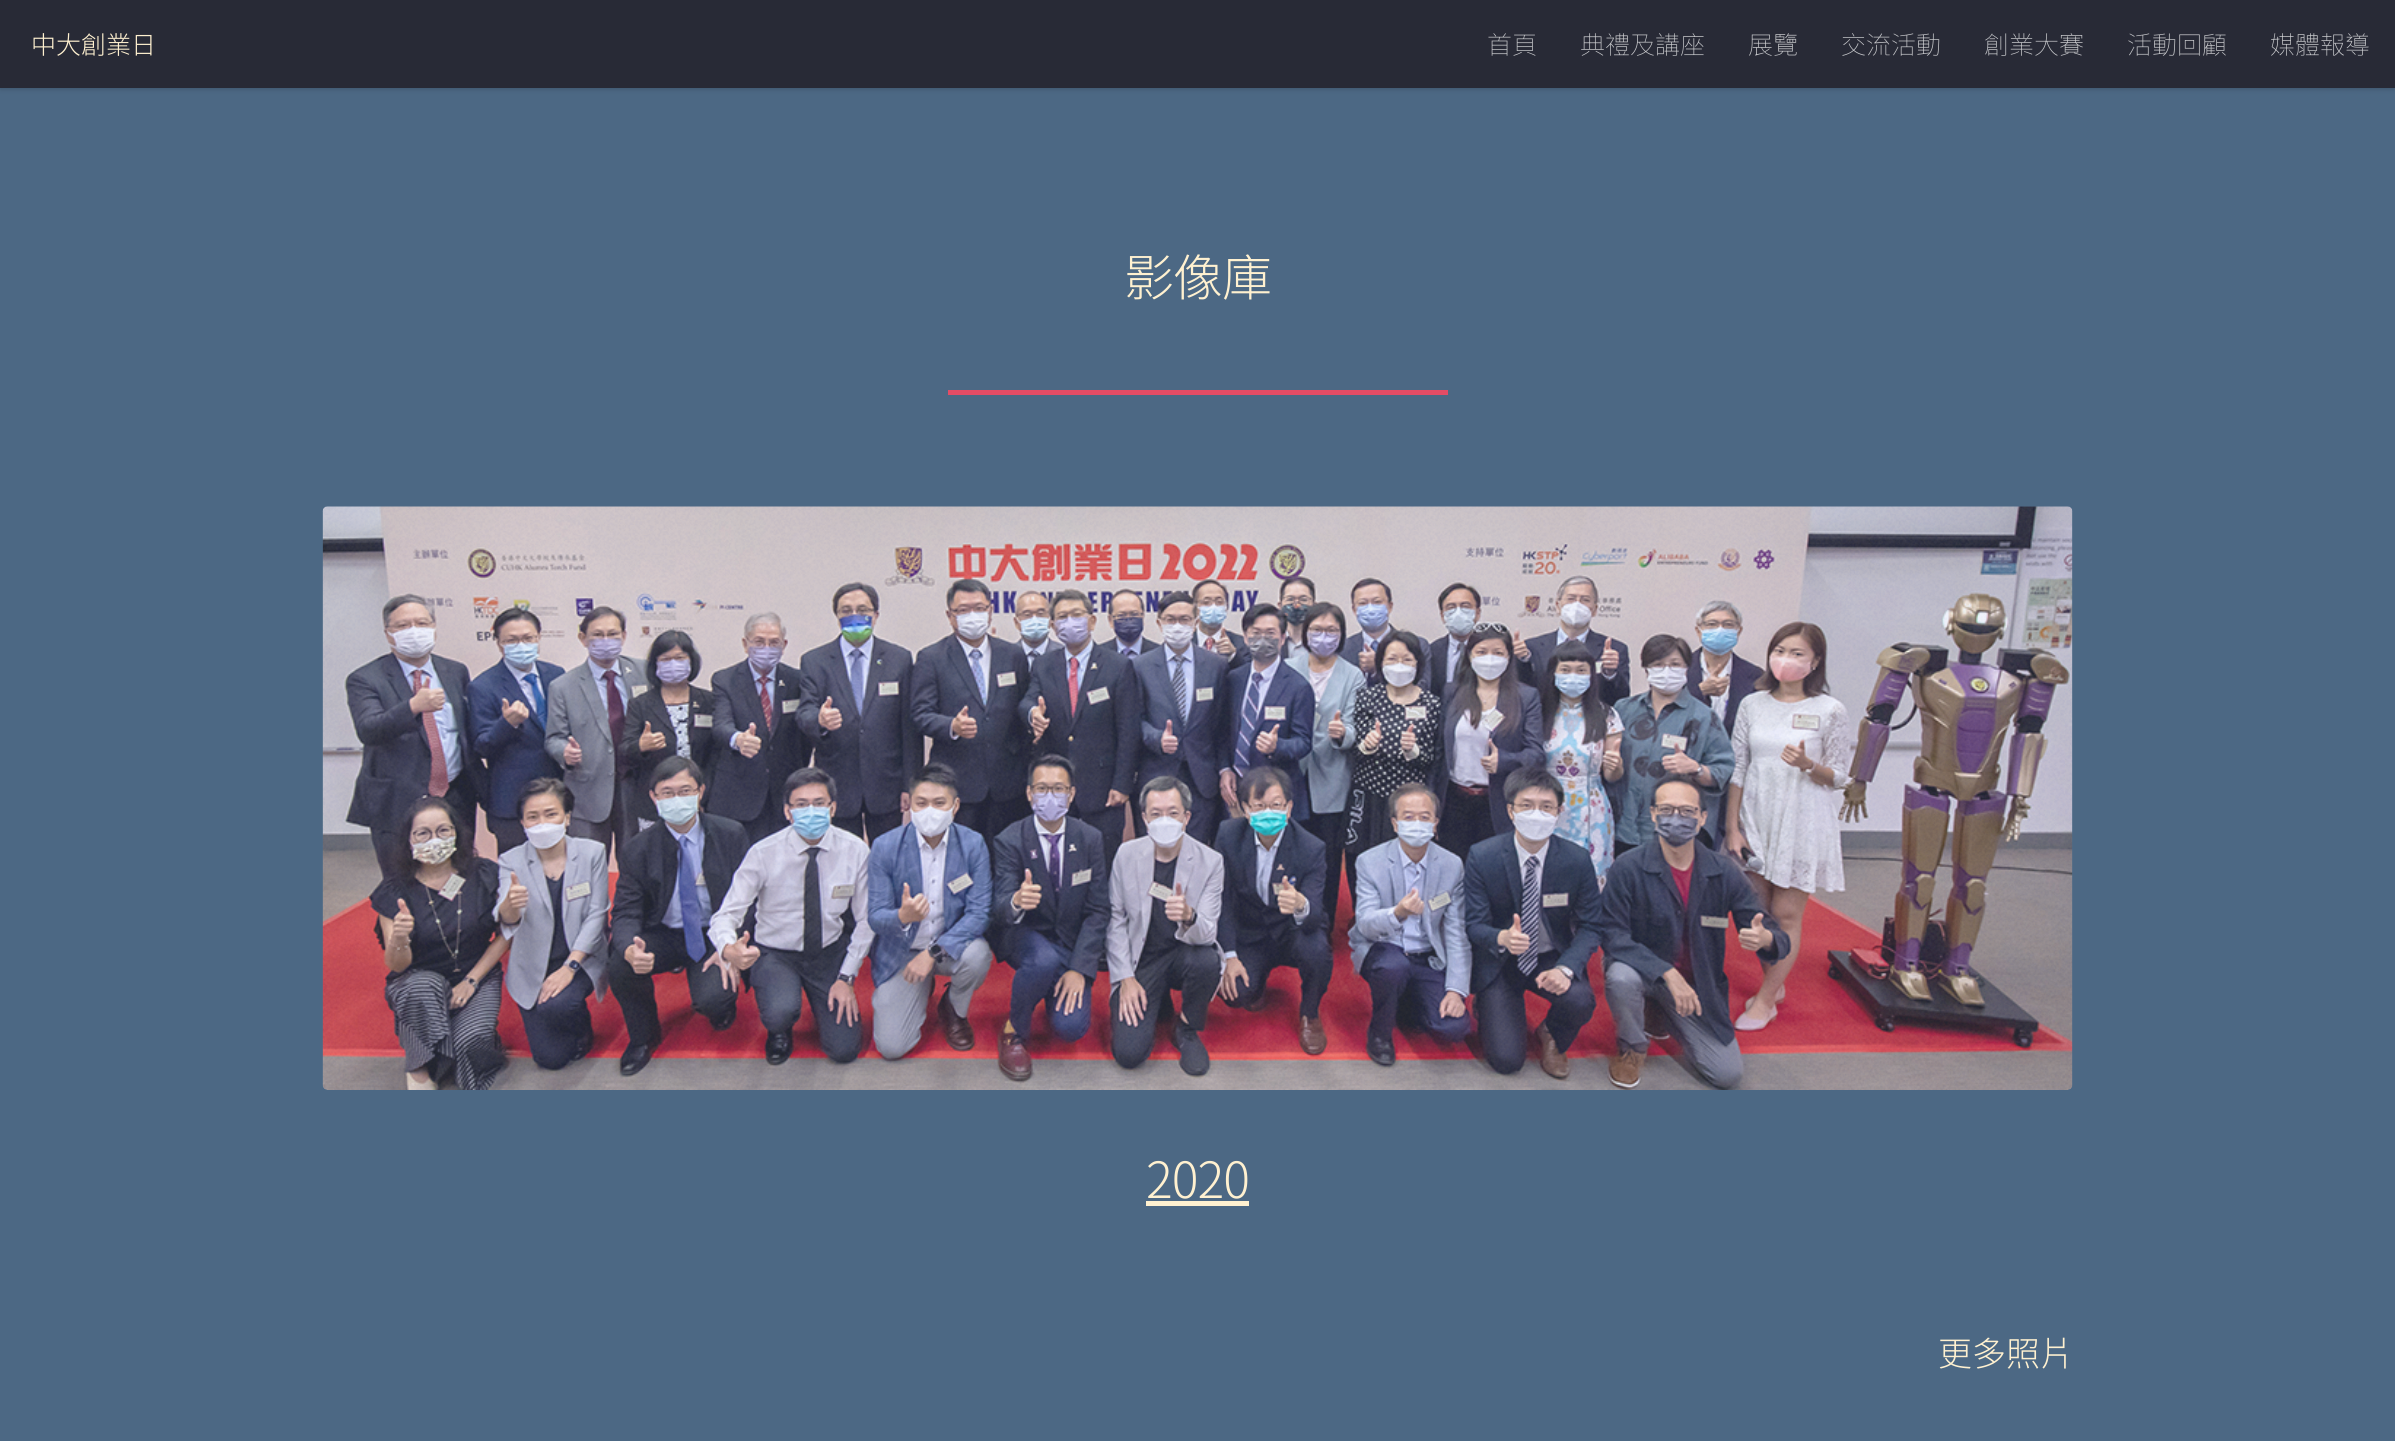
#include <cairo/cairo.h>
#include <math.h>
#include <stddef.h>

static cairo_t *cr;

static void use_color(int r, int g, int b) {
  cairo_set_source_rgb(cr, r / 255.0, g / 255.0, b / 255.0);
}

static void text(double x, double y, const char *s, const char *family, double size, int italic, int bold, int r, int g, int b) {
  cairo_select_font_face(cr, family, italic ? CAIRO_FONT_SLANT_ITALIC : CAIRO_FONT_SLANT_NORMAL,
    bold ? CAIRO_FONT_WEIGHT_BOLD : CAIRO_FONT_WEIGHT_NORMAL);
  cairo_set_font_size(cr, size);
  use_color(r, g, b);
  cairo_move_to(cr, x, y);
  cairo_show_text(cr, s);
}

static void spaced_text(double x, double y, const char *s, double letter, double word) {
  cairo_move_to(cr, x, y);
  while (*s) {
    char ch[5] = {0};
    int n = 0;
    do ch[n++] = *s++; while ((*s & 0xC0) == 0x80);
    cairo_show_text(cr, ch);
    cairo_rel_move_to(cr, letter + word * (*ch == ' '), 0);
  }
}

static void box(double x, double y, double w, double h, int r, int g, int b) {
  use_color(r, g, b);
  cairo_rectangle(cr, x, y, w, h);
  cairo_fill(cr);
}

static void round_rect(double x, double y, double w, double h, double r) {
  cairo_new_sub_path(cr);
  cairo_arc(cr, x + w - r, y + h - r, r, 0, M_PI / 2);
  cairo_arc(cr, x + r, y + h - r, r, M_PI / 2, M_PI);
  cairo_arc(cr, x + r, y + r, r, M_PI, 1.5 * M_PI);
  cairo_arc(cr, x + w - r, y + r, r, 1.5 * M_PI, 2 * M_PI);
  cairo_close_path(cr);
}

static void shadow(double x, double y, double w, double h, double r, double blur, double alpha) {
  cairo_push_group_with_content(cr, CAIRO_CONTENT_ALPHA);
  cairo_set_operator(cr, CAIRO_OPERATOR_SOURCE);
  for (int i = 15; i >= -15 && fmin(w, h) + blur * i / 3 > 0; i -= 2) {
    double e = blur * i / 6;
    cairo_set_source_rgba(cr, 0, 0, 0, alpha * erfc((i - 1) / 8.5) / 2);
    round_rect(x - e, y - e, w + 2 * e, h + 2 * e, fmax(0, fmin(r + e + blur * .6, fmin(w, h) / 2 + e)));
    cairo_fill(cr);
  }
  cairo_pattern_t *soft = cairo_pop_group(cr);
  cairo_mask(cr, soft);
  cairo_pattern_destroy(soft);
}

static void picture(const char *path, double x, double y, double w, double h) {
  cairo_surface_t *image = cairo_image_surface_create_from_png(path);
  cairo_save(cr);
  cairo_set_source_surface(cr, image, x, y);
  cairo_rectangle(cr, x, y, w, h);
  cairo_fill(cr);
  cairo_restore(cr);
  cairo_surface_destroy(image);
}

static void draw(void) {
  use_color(76, 104, 132);
  cairo_paint(cr);
  cairo_save(cr);
  cairo_set_fill_rule(cr, CAIRO_FILL_RULE_EVEN_ODD);
  cairo_new_path(cr);
  cairo_move_to(cr, 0, 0);
  cairo_line_to(cr, 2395, 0);
  cairo_line_to(cr, 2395, 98);
  cairo_line_to(cr, 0, 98);
  cairo_close_path(cr);
  cairo_move_to(cr, 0, 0);
  cairo_line_to(cr, 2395, 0);
  cairo_line_to(cr, 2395, 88);
  cairo_line_to(cr, 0, 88);
  cairo_close_path(cr);
  cairo_clip(cr);
  use_color(0, 0, 0);
  shadow(0, 0, 2395, 88, 0, 3, 0.25);
  cairo_restore(cr);
  cairo_set_source_rgba(cr, 0.153, 0.157, 0.2, 0.96);
  cairo_rectangle(cr, 0, 0, 2395, 88);
  cairo_fill(cr);
  box(948, 390, 500, 5, 228, 76, 101);
  picture("img_01.png", 322, 506, 1751, 584);
  picture("img_02.png", 322, 506, 1751, 584);
  box(1146, 1201, 103, 5, 255, 241, 208);
  text(31, 54, "中大創業日", "Noto Sans TC Light", 25, 0, 0, 255, 241, 208);
  text(1487, 54, "首頁", "Noto Sans TC Thin", 25, 0, 0, 201, 202, 205);
  text(1580, 54, "典禮及講座", "Noto Sans TC Thin", 25, 0, 0, 201, 202, 205);
  text(1748, 54, "展覽", "Noto Sans TC Thin", 25, 0, 0, 201, 202, 205);
  text(1841, 54, "交流活動", "Noto Sans TC Thin", 25, 0, 0, 201, 202, 205);
  text(1984, 54, "創業大賽", "Noto Sans TC Thin", 25, 0, 0, 201, 202, 205);
  text(2127, 54, "活動回顧", "Noto Sans TC Thin", 25, 0, 0, 201, 202, 205);
  text(2270, 54, "媒體報導", "Noto Sans TC Thin", 25, 0, 0, 201, 202, 205);
  cairo_select_font_face(cr, "Noto Sans TC Light", CAIRO_FONT_SLANT_NORMAL, CAIRO_FONT_WEIGHT_NORMAL);
  cairo_set_font_size(cr, 50);
  use_color(255, 241, 208);
  spaced_text(1124, 296, "影像庫", -1, 0);
  spaced_text(1146, 1198, "2020", -1, 0);
  text(1938, 1366, "更多照片", "Noto Sans TC Light", 34, 0, 0, 255, 241, 208);
}

int main(void) {
  cairo_surface_t *surface = cairo_image_surface_create(CAIRO_FORMAT_RGB24, 2395, 1441);
  cr = cairo_create(surface);
  cairo_font_options_t *options = cairo_font_options_create();
  cairo_font_options_set_hint_metrics(options, CAIRO_HINT_METRICS_OFF);
  cairo_font_options_set_hint_style(options, CAIRO_HINT_STYLE_NONE);
  cairo_set_font_options(cr, options);
  cairo_set_miter_limit(cr, 4);
  draw();
  cairo_surface_write_to_png(surface, "out.png");
  cairo_font_options_destroy(options);
  cairo_destroy(cr);
  cairo_surface_destroy(surface);
  return 0;
}
